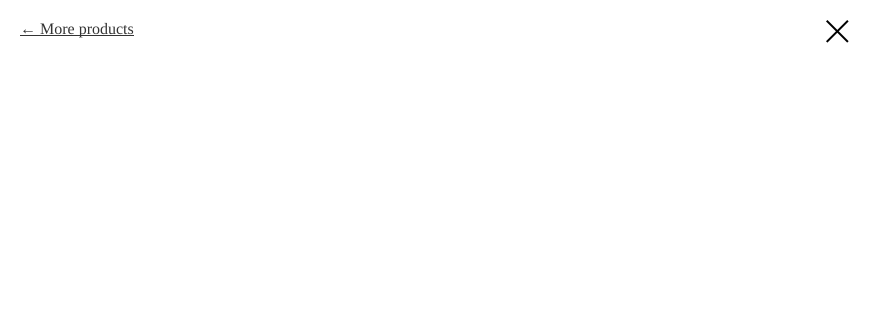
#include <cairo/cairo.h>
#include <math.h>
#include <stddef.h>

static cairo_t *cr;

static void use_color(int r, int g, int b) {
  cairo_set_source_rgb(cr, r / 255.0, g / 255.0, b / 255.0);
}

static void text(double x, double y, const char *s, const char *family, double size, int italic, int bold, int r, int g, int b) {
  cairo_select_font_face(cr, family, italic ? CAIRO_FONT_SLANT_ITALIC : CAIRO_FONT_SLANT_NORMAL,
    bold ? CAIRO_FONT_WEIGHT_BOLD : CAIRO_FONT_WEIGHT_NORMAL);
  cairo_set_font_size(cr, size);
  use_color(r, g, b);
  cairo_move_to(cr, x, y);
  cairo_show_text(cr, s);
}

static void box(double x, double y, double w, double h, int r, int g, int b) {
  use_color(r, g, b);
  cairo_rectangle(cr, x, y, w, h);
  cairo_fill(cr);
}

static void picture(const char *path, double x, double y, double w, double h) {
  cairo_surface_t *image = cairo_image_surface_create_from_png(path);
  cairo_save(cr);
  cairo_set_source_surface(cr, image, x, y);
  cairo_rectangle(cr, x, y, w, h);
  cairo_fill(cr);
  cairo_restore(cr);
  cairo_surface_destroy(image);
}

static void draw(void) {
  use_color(255, 255, 255);
  cairo_paint(cr);
  box(20, 35, 114, 1, 51, 51, 51);
  picture("img_01.png", 826, 20, 23, 23);
  text(20, 34, "←", "Liberation Sans", 16, 0, 0, 51, 51, 51);
  text(40, 34, "More products", "Liberation Serif", 16, 0, 0, 51, 51, 51);
}

int main(void) {
  cairo_surface_t *surface = cairo_image_surface_create(CAIRO_FORMAT_RGB24, 869, 322);
  cr = cairo_create(surface);
  cairo_font_options_t *options = cairo_font_options_create();
  cairo_font_options_set_hint_metrics(options, CAIRO_HINT_METRICS_OFF);
  cairo_font_options_set_hint_style(options, CAIRO_HINT_STYLE_NONE);
  cairo_set_font_options(cr, options);
  cairo_set_miter_limit(cr, 4);
  draw();
  cairo_surface_write_to_png(surface, "out.png");
  cairo_font_options_destroy(options);
  cairo_destroy(cr);
  cairo_surface_destroy(surface);
  return 0;
}
